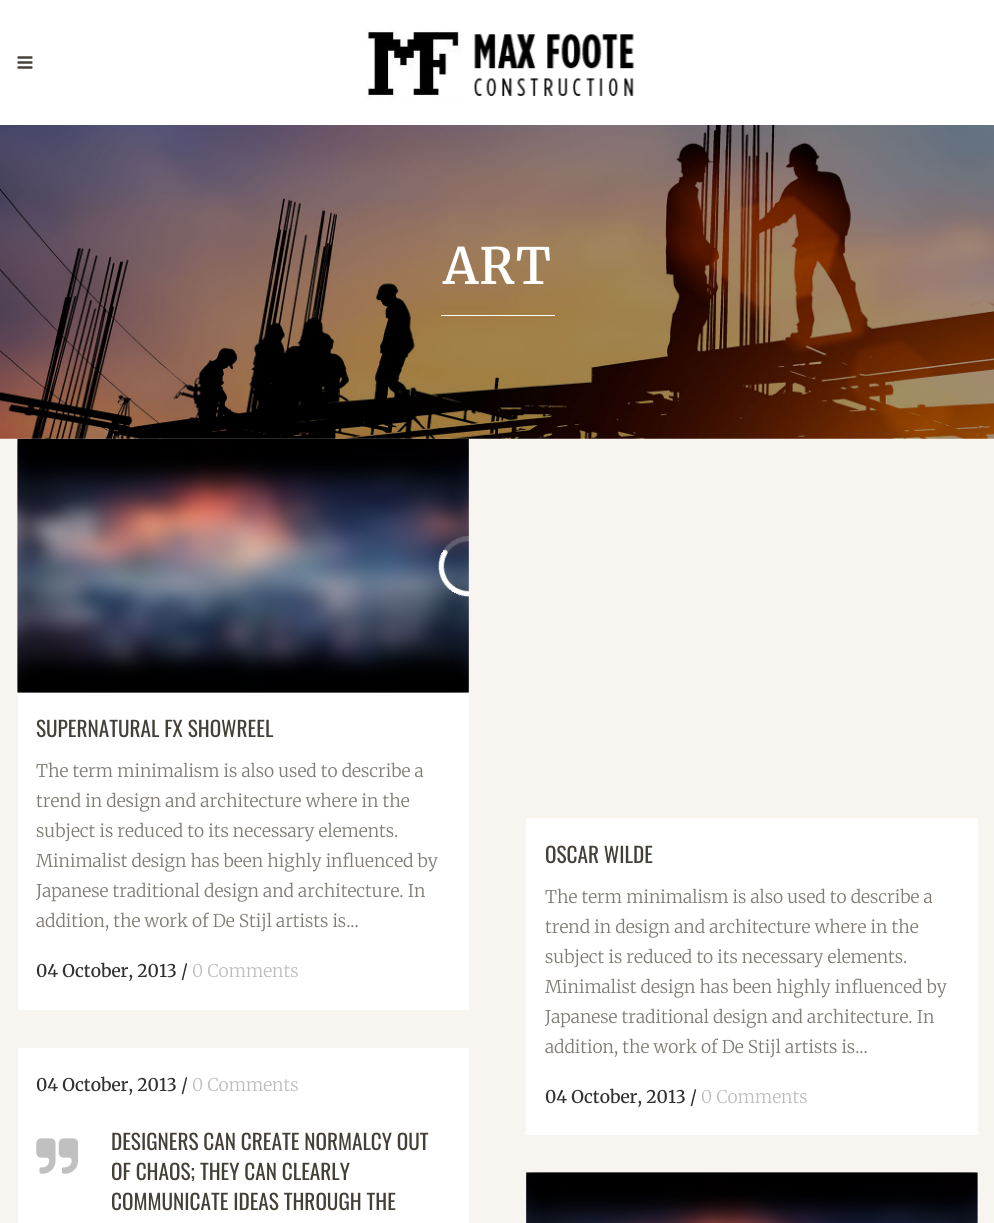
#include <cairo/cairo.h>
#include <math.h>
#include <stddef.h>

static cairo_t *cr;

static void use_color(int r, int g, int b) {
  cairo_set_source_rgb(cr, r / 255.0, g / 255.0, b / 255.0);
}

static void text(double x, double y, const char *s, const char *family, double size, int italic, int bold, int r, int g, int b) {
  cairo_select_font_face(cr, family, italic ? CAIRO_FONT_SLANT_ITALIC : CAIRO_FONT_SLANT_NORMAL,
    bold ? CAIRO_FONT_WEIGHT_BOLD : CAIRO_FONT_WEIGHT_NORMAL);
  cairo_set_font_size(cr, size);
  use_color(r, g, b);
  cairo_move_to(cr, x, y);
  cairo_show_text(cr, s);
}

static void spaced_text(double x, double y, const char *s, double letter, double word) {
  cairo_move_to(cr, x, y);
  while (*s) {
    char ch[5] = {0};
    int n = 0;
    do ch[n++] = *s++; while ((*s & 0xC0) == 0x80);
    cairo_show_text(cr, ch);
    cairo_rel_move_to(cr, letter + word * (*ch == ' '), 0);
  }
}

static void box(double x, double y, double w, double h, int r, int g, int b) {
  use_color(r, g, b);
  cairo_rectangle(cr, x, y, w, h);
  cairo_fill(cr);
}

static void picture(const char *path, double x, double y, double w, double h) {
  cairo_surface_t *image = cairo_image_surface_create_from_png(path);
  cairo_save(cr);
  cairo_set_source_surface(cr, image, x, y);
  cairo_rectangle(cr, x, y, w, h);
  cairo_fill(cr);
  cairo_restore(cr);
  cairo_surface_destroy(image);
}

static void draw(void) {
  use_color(248, 245, 240);
  cairo_paint(cr);
  box(0, 0, 994, 125, 255, 255, 255);
  picture("img_01.png", 17, 56, 16, 13);
  picture("img_02.png", 366, 29, 268, 71);
  picture("img_04.png", 17, 438, 452, 255);
  picture("img_03.png", 0, 125, 994, 314);
  box(441, 315, 114, 1, 255, 255, 255);
  box(18, 693, 451, 317, 255, 255, 255);
  box(526, 818, 452, 317, 255, 255, 255);
  box(18, 1048, 451, 175, 255, 255, 255);
  picture("img_05.png", 36, 1138, 42, 36);
  picture("img_06.png", 526, 1172, 452, 51);
  cairo_select_font_face(cr, "Merriweather SemiBold", CAIRO_FONT_SLANT_NORMAL, CAIRO_FONT_WEIGHT_NORMAL);
  cairo_set_font_size(cr, 50);
  spaced_text(443, 284, "ART", 1, 0);
  text(36, 737, "SUPERNATURAL FX SHOWREEL", "Oswald", 21.25, 0, 0, 68, 64, 56);
  text(36, 777, "The term minimalism is also used to describe a", "Merriweather Light", 17.5, 0, 0, 128, 124, 117);
  text(36, 807, "trend in design and architecture where in the", "Merriweather Light", 17.5, 0, 0, 128, 124, 117);
  text(36, 837, "subject is reduced to its necessary elements.", "Merriweather Light", 17.5, 0, 0, 128, 124, 117);
  text(36, 867, "Minimalist design has been highly influenced by", "Merriweather Light", 17.5, 0, 0, 128, 124, 117);
  text(36, 897, "Japanese traditional design and architecture. In", "Merriweather Light", 17.5, 0, 0, 128, 124, 117);
  text(36, 927, "addition, the work of De Stijl artists is...", "Merriweather Light", 17.5, 0, 0, 128, 124, 117);
  text(36, 977, "04 October, 2013 /", "Merriweather Medium", 17.5, 0, 0, 48, 48, 48);
  text(192, 977, "0 Comments", "Merriweather Light", 17.5, 0, 0, 190, 190, 190);
  text(545, 863, "OSCAR WILDE", "Oswald", 21.25, 0, 0, 68, 64, 56);
  text(545, 903, "The term minimalism is also used to describe a", "Merriweather Light", 17.5, 0, 0, 128, 124, 117);
  text(545, 933, "trend in design and architecture where in the", "Merriweather Light", 17.5, 0, 0, 128, 124, 117);
  text(545, 963, "subject is reduced to its necessary elements.", "Merriweather Light", 17.5, 0, 0, 128, 124, 117);
  text(545, 993, "Minimalist design has been highly influenced by", "Merriweather Light", 17.5, 0, 0, 128, 124, 117);
  text(545, 1023, "Japanese traditional design and architecture. In", "Merriweather Light", 17.5, 0, 0, 128, 124, 117);
  text(545, 1053, "addition, the work of De Stijl artists is...", "Merriweather Light", 17.5, 0, 0, 128, 124, 117);
  text(545, 1103, "04 October, 2013 /", "Merriweather Medium", 17.5, 0, 0, 48, 48, 48);
  text(701, 1103, "0 Comments", "Merriweather Light", 17.5, 0, 0, 190, 190, 190);
  text(36, 1091, "04 October, 2013 /", "Merriweather Medium", 17.5, 0, 0, 48, 48, 48);
  text(192, 1091, "0 Comments", "Merriweather Light", 17.5, 0, 0, 190, 190, 190);
  text(111, 1150, "DESIGNERS CAN CREATE NORMALCY OUT", "Oswald", 21.25, 0, 0, 68, 64, 56);
  text(111, 1180, "OF CHAOS; THEY CAN CLEARLY", "Oswald", 21.25, 0, 0, 68, 64, 56);
  text(111, 1210, "COMMUNICATE IDEAS THROUGH THE", "Oswald", 21.25, 0, 0, 68, 64, 56);
}

int main(void) {
  cairo_surface_t *surface = cairo_image_surface_create(CAIRO_FORMAT_RGB24, 994, 1223);
  cr = cairo_create(surface);
  cairo_font_options_t *options = cairo_font_options_create();
  cairo_font_options_set_hint_metrics(options, CAIRO_HINT_METRICS_OFF);
  cairo_font_options_set_hint_style(options, CAIRO_HINT_STYLE_NONE);
  cairo_set_font_options(cr, options);
  cairo_set_miter_limit(cr, 4);
  draw();
  cairo_surface_write_to_png(surface, "out.png");
  cairo_font_options_destroy(options);
  cairo_destroy(cr);
  cairo_surface_destroy(surface);
  return 0;
}
